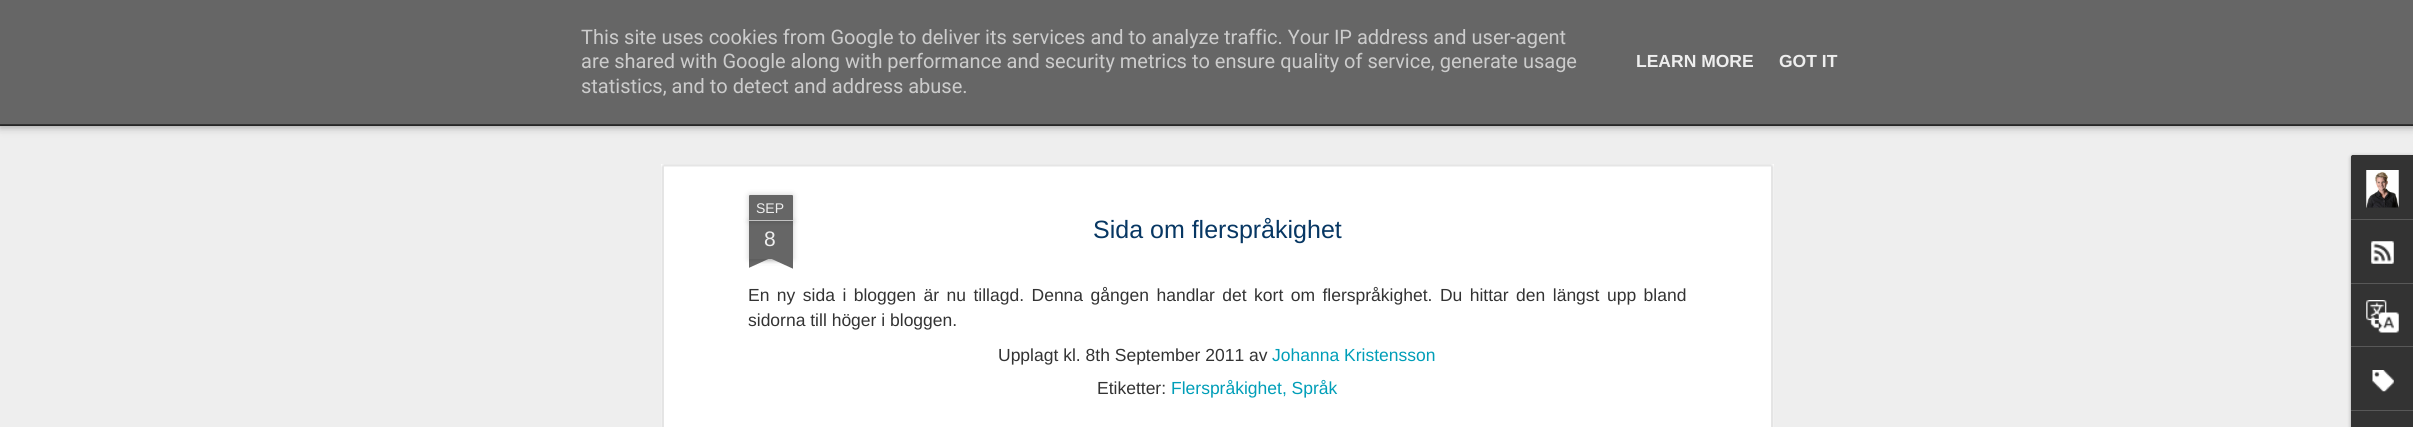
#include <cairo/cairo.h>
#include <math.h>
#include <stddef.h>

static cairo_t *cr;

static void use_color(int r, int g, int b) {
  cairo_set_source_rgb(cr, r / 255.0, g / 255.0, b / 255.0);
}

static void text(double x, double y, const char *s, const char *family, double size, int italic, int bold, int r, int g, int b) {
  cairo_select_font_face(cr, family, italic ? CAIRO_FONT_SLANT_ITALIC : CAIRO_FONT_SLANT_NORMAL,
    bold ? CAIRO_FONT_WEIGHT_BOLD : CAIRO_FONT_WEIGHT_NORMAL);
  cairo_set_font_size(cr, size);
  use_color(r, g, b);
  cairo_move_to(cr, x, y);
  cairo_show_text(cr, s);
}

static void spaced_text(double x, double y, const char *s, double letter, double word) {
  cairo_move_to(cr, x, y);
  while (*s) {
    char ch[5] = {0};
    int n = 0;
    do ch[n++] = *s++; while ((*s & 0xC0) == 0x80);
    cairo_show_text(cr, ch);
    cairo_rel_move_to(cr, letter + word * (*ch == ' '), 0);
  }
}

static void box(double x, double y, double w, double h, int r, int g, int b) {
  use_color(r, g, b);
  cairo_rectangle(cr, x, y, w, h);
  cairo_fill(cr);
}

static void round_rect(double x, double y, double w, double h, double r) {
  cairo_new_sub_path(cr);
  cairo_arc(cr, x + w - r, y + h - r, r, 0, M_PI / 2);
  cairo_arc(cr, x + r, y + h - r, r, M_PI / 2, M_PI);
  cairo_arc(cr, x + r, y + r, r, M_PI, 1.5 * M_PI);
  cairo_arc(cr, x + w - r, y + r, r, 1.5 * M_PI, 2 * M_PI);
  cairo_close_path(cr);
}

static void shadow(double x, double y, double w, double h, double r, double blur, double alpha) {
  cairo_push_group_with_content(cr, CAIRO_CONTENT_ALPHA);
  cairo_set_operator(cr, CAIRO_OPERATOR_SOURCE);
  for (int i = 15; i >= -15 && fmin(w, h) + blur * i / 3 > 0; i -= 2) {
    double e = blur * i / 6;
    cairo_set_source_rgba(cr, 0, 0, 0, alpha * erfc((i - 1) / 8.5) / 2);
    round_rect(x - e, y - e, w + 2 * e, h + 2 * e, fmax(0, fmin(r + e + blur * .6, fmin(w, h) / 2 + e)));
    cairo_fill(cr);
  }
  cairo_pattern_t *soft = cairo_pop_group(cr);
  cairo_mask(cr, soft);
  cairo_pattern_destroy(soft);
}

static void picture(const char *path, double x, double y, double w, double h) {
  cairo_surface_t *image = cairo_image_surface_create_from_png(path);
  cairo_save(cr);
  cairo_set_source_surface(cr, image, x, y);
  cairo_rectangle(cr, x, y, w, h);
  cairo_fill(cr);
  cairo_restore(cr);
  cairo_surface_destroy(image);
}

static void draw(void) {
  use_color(51, 51, 51);
  cairo_paint(cr);
  box(0, 126, 2413, 301, 238, 238, 238);
  use_color(0, 0, 0);
  shadow(0, 81, 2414, 44, 0, 5, 0.5);
  box(0, 0, 2413, 124, 102, 102, 102);
  box(0, 124, 2413, 1, 51, 51, 51);
  box(661, 164, 1113, 263, 255, 255, 255);
  picture("img_01.png", 661, 164, 1113, 263);
  use_color(0, 0, 0);
  shadow(749, 221, 44, 38, 0, 3, 0.2);
  box(749, 221, 44, 38, 102, 102, 102);
  use_color(0, 0, 0);
  shadow(749, 195, 44, 26, 1, 3, 0.2);
  use_color(102, 102, 102);
  cairo_new_path(cr);
  cairo_move_to(cr, 750, 195);
  cairo_line_to(cr, 792, 195);
  cairo_curve_to(cr, 792.5, 195, 793, 195.5, 793, 196);
  cairo_line_to(cr, 793, 221);
  cairo_line_to(cr, 749, 221);
  cairo_line_to(cr, 749, 196);
  cairo_curve_to(cr, 749, 195.5, 749.5, 195, 750, 195);
  cairo_close_path(cr);
  cairo_fill(cr);
  box(749, 220, 44, 1, 194, 194, 194);
  cairo_save(cr);
  cairo_rectangle(cr, 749, 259, 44, 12);
  cairo_clip(cr);
  use_color(0, 0, 0);
  shadow(738, 246, 62, 13, 0, 3, 0.2);
  cairo_restore(cr);
  cairo_save(cr);
  cairo_rectangle(cr, 749, 259, 44, 12);
  cairo_clip(cr);
  use_color(102, 102, 102);
  cairo_new_path(cr);
  cairo_move_to(cr, 737, 260);
  cairo_line_to(cr, 794, 234);
  cairo_line_to(cr, 799, 245);
  cairo_line_to(cr, 742, 271);
  cairo_close_path(cr);
  cairo_fill(cr);
  cairo_restore(cr);
  cairo_save(cr);
  cairo_rectangle(cr, 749, 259, 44, 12);
  cairo_clip(cr);
  use_color(0, 0, 0);
  shadow(741, 246, 63, 13, 0, 3, 0.2);
  cairo_restore(cr);
  cairo_save(cr);
  cairo_rectangle(cr, 749, 259, 44, 12);
  cairo_clip(cr);
  use_color(102, 102, 102);
  cairo_new_path(cr);
  cairo_move_to(cr, 746, 234);
  cairo_line_to(cr, 803, 260);
  cairo_line_to(cr, 798, 271);
  cairo_line_to(cr, 741, 245);
  cairo_close_path(cr);
  cairo_fill(cr);
  cairo_restore(cr);
  use_color(0, 0, 0);
  shadow(2351, 156, 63, 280, 2.5, 2, 0.3);
  use_color(51, 51, 51);
  cairo_new_path(cr);
  cairo_move_to(cr, 2353.5, 155);
  cairo_line_to(cr, 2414, 155);
  cairo_line_to(cr, 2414, 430);
  cairo_line_to(cr, 2353.5, 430);
  cairo_curve_to(cr, 2352, 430, 2351, 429, 2351, 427.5);
  cairo_line_to(cr, 2351, 157.5);
  cairo_curve_to(cr, 2351, 156, 2352, 155, 2353.5, 155);
  cairo_close_path(cr);
  cairo_fill(cr);
  cairo_new_path(cr);
  cairo_move_to(cr, 2353.5, 155);
  cairo_line_to(cr, 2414, 155);
  cairo_line_to(cr, 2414, 219);
  cairo_line_to(cr, 2351, 219);
  cairo_line_to(cr, 2351, 157.5);
  cairo_curve_to(cr, 2351, 156, 2352, 155, 2353.5, 155);
  cairo_close_path(cr);
  cairo_fill(cr);
  picture("img_02.png", 2366, 170, 33, 38);
  box(2351, 219, 62, 1, 88, 88, 88);
  picture("img_03.png", 2371, 241, 23, 23);
  box(2351, 283, 62, 1, 88, 88, 88);
  picture("img_04.png", 2366, 300, 33, 33);
  box(2351, 346, 62, 1, 88, 88, 88);
  picture("img_05.png", 2372, 370, 22, 22);
  box(2351, 410, 62, 1, 88, 88, 88);
  text(581, 44, "This site uses cookies from Google to deliver its services and to analyze traffic. Your IP address and user-agent", "Roboto", 20, 0, 0, 204, 204, 204);
  text(581, 68, "are shared with Google along with performance and security metrics to ensure quality of service, generate usage", "Roboto", 20, 0, 0, 204, 204, 204);
  text(581, 93, "statistics, and to detect and address abuse.", "Roboto", 20, 0, 0, 204, 204, 204);
  text(1636, 67, "LEARN MORE", "Liberation Sans", 17.5, 0, 1, 238, 238, 238);
  text(1779, 67, "GOT IT", "Liberation Sans", 17.5, 0, 1, 238, 238, 238);
  text(756, 213, "SEP", "Liberation Sans", 14, 0, 0, 238, 238, 238);
  text(764, 246, "8", "Liberation Sans", 21, 0, 0, 238, 238, 238);
  text(1093, 238, "Sida om flerspråkighet", "Liberation Sans", 25, 0, 0, 7, 55, 99);
  cairo_set_font_size(cr, 17.5);
  use_color(51, 51, 51);
  spaced_text(748, 301, "En ny sida i bloggen är nu tillagd. Denna gången handlar det kort om flerspråkighet. Du hittar den längst upp bland", 0, 2.6);
  text(748, 326, "sidorna till höger i bloggen.", "Liberation Sans", 17.5, 0, 0, 51, 51, 51);
  text(998, 361, "Upplagt kl. 8th September 2011 av", "Liberation Sans", 17.5, 0, 0, 51, 51, 51);
  text(1272, 361, "Johanna Kristensson", "Liberation Sans", 17.5, 0, 0, 0, 158, 184);
  text(1097, 394, "Etiketter:", "Liberation Sans", 17.5, 0, 0, 51, 51, 51);
  text(1171, 394, "Flerspråkighet, Språk", "Liberation Sans", 17.5, 0, 0, 0, 158, 184);
}

int main(void) {
  cairo_surface_t *surface = cairo_image_surface_create(CAIRO_FORMAT_RGB24, 2413, 427);
  cr = cairo_create(surface);
  cairo_font_options_t *options = cairo_font_options_create();
  cairo_font_options_set_hint_metrics(options, CAIRO_HINT_METRICS_OFF);
  cairo_font_options_set_hint_style(options, CAIRO_HINT_STYLE_NONE);
  cairo_set_font_options(cr, options);
  cairo_set_miter_limit(cr, 4);
  draw();
  cairo_surface_write_to_png(surface, "out.png");
  cairo_font_options_destroy(options);
  cairo_destroy(cr);
  cairo_surface_destroy(surface);
  return 0;
}
